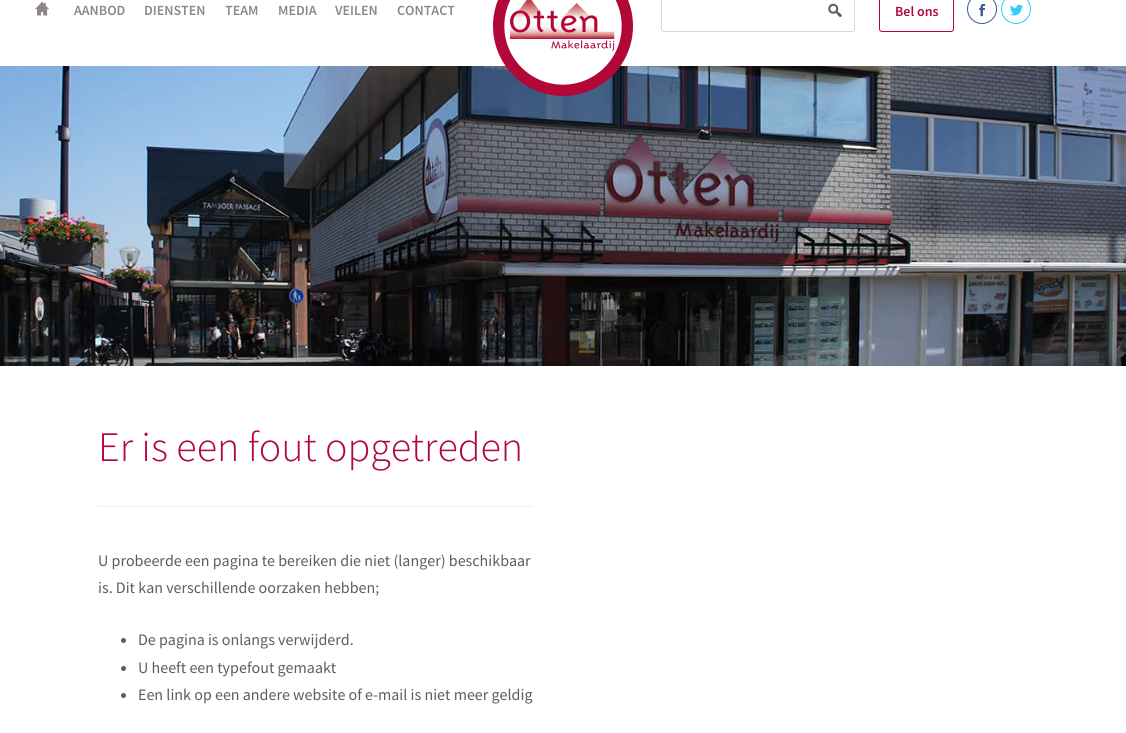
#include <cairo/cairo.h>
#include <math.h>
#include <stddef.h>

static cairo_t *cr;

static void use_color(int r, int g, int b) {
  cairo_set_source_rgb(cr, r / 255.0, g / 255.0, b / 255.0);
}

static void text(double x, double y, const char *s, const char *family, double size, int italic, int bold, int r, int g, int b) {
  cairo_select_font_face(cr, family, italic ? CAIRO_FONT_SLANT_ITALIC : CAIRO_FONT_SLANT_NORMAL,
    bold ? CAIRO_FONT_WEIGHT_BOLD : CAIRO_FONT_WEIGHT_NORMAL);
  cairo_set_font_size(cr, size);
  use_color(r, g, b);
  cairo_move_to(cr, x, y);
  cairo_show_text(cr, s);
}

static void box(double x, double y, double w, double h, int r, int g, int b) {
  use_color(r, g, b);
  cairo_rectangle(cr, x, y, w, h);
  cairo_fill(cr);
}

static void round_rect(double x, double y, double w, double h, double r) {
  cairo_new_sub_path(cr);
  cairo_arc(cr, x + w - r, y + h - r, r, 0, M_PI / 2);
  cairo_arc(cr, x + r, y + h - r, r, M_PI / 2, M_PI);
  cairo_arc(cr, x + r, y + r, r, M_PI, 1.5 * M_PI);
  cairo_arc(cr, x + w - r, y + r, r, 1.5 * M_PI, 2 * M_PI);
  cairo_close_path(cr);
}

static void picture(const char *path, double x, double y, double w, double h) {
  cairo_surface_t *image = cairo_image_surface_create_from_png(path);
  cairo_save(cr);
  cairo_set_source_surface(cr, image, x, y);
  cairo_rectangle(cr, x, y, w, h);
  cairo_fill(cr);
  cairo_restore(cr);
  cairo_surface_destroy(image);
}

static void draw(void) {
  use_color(255, 255, 255);
  cairo_paint(cr);
  picture("img_01.png", 35, 1, 14, 15);
  picture("img_06.png", 0, 66, 1126, 300);
  picture("img_02.png", 493, 0, 140, 96);
  round_rect(661.5, -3.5, 193, 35, 2.5);
  use_color(220, 215, 216);
  cairo_set_line_width(cr, 1);
  cairo_stroke(cr);
  use_color(255, 255, 255);
  round_rect(816, -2, 38, 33, 2);
  cairo_fill(cr);
  picture("img_03.png", 828, 3, 14, 14);
  round_rect(879.5, -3.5, 74, 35, 2.5);
  use_color(178, 8, 56);
  cairo_stroke(cr);
  cairo_arc(cr, 982, 9, 14.5, 0, 2 * M_PI);
  use_color(59, 89, 153);
  cairo_stroke(cr);
  picture("img_04.png", 979, 4, 7, 13);
  cairo_arc(cr, 1016, 9, 14.5, 0, 2 * M_PI);
  use_color(50, 204, 254);
  cairo_stroke(cr);
  picture("img_05.png", 1010, 4, 13, 12);
  box(98, 506, 435, 1, 238, 238, 238);
  use_color(97, 91, 94);
  cairo_arc(cr, 123.5, 640.5, 2.5, 0, 2 * M_PI);
  cairo_fill(cr);
  cairo_arc(cr, 123.5, 668.5, 2.5, 0, 2 * M_PI);
  cairo_fill(cr);
  cairo_arc(cr, 123.5, 695.5, 2.5, 0, 2 * M_PI);
  cairo_fill(cr);
  text(74, 15, "AANBOD", "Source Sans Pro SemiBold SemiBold", 14, 0, 0, 142, 134, 136);
  text(144, 15, "DIENSTEN", "Source Sans Pro SemiBold SemiBold", 14, 0, 0, 142, 134, 136);
  text(225, 15, "TEAM", "Source Sans Pro SemiBold SemiBold", 14, 0, 0, 142, 134, 136);
  text(278, 15, "MEDIA", "Source Sans Pro SemiBold SemiBold", 14, 0, 0, 142, 134, 136);
  text(335, 15, "VEILEN", "Source Sans Pro SemiBold SemiBold", 14, 0, 0, 142, 134, 136);
  text(397, 15, "CONTACT", "Source Sans Pro SemiBold SemiBold", 14, 0, 0, 142, 134, 136);
  text(895, 16, "Bel ons", "Source Sans Pro SemiBold SemiBold", 14, 0, 0, 178, 8, 56);
  text(98, 461, "Er is een fout opgetreden", "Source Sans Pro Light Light", 42, 0, 0, 178, 8, 56);
  text(98, 566, "U probeerde een pagina te bereiken die niet (langer) beschikbaar", "Source Sans Pro", 16, 0, 0, 97, 91, 94);
  text(98, 593, "is. Dit kan verschillende oorzaken hebben;", "Source Sans Pro", 16, 0, 0, 97, 91, 94);
  text(138, 645, "De pagina is onlangs verwijderd.", "Source Sans Pro", 16, 0, 0, 97, 91, 94);
  text(138, 673, "U heeft een typefout gemaakt", "Source Sans Pro", 16, 0, 0, 97, 91, 94);
  text(138, 700, "Een link op een andere website of e-mail is niet meer geldig", "Source Sans Pro", 16, 0, 0, 97, 91, 94);
}

int main(void) {
  cairo_surface_t *surface = cairo_image_surface_create(CAIRO_FORMAT_RGB24, 1126, 733);
  cr = cairo_create(surface);
  cairo_font_options_t *options = cairo_font_options_create();
  cairo_font_options_set_hint_metrics(options, CAIRO_HINT_METRICS_OFF);
  cairo_font_options_set_hint_style(options, CAIRO_HINT_STYLE_NONE);
  cairo_set_font_options(cr, options);
  cairo_set_miter_limit(cr, 4);
  draw();
  cairo_surface_write_to_png(surface, "out.png");
  cairo_font_options_destroy(options);
  cairo_destroy(cr);
  cairo_surface_destroy(surface);
  return 0;
}
